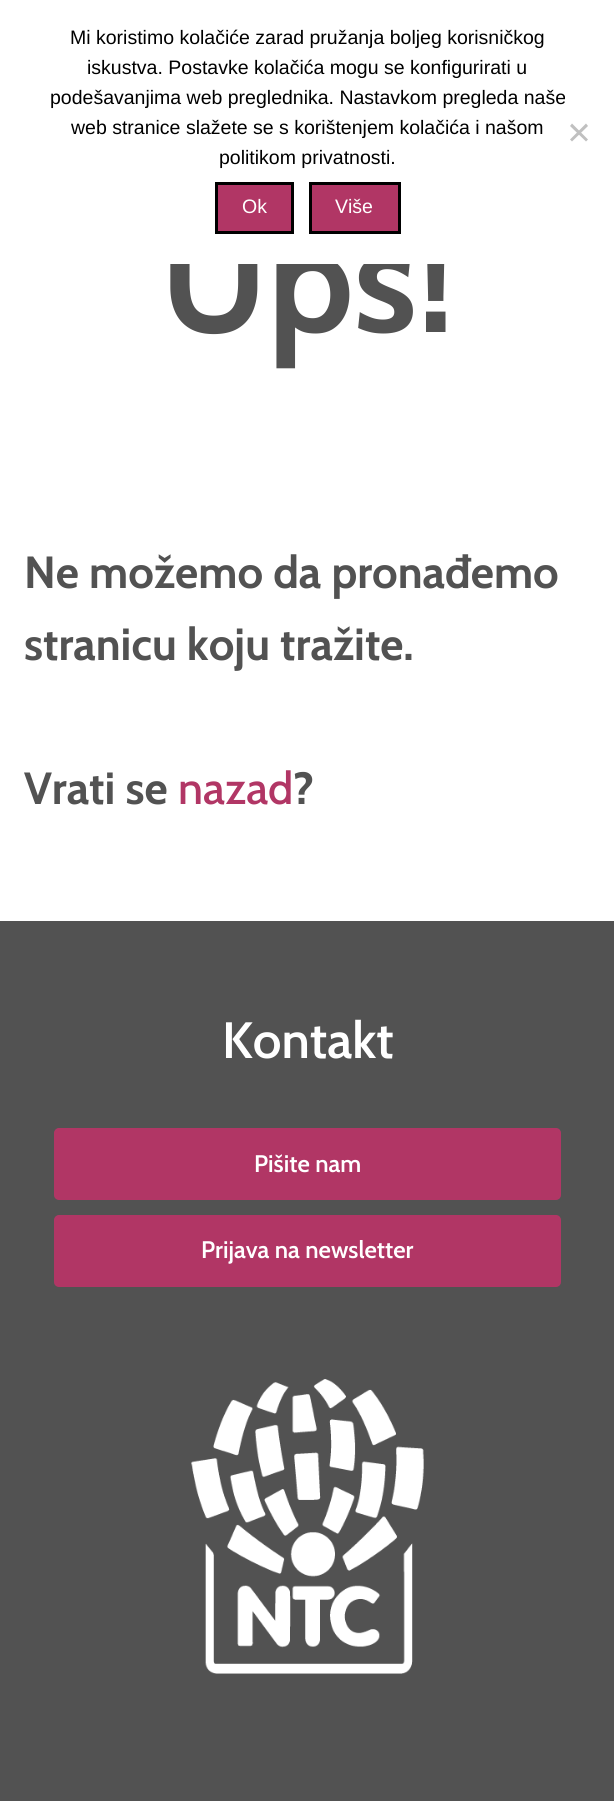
#include <cairo/cairo.h>
#include <math.h>
#include <stddef.h>

static cairo_t *cr;

static void use_color(int r, int g, int b) {
  cairo_set_source_rgb(cr, r / 255.0, g / 255.0, b / 255.0);
}

static void text(double x, double y, const char *s, const char *family, double size, int italic, int bold, int r, int g, int b) {
  cairo_select_font_face(cr, family, italic ? CAIRO_FONT_SLANT_ITALIC : CAIRO_FONT_SLANT_NORMAL,
    bold ? CAIRO_FONT_WEIGHT_BOLD : CAIRO_FONT_WEIGHT_NORMAL);
  cairo_set_font_size(cr, size);
  use_color(r, g, b);
  cairo_move_to(cr, x, y);
  cairo_show_text(cr, s);
}

static void box(double x, double y, double w, double h, int r, int g, int b) {
  use_color(r, g, b);
  cairo_rectangle(cr, x, y, w, h);
  cairo_fill(cr);
}

static void round_rect(double x, double y, double w, double h, double r) {
  cairo_new_sub_path(cr);
  cairo_arc(cr, x + w - r, y + h - r, r, 0, M_PI / 2);
  cairo_arc(cr, x + r, y + h - r, r, M_PI / 2, M_PI);
  cairo_arc(cr, x + r, y + r, r, M_PI, 1.5 * M_PI);
  cairo_arc(cr, x + w - r, y + r, r, 1.5 * M_PI, 2 * M_PI);
  cairo_close_path(cr);
}

static void picture(const char *path, double x, double y, double w, double h) {
  cairo_surface_t *image = cairo_image_surface_create_from_png(path);
  cairo_save(cr);
  cairo_set_source_surface(cr, image, x, y);
  cairo_rectangle(cr, x, y, w, h);
  cairo_fill(cr);
  cairo_restore(cr);
  cairo_surface_destroy(image);
}

static void draw(void) {
  use_color(255, 255, 255);
  cairo_paint(cr);
  use_color(192, 192, 192);
  cairo_new_path(cr);
  cairo_move_to(cr, 586, 123.5);
  cairo_line_to(cr, 588, 126);
  cairo_line_to(cr, 572, 141.5);
  cairo_line_to(cr, 570, 139.5);
  cairo_close_path(cr);
  cairo_fill(cr);
  cairo_new_path(cr);
  cairo_move_to(cr, 570, 126);
  cairo_line_to(cr, 572, 123.5);
  cairo_line_to(cr, 588, 139.5);
  cairo_line_to(cr, 586, 141.5);
  cairo_close_path(cr);
  cairo_fill(cr);
  box(0, 921, 614, 880, 82, 82, 82);
  use_color(177, 54, 101);
  round_rect(55, 1129, 505, 70, 4);
  cairo_fill_preserve(cr);
  cairo_stroke(cr);
  round_rect(55, 1216, 505, 70, 4);
  cairo_fill_preserve(cr);
  cairo_stroke(cr);
  picture("img_01.png", 191, 1379, 233, 295);
  text(70, 44, "Mi koristimo kolačiće zarad pružanja boljeg korisničkog", "Liberation Sans", 19.5, 0, 0, 0, 0, 0);
  text(87, 74, "iskustva. Postavke kolačića mogu se konfigurirati u", "Liberation Sans", 19.5, 0, 0, 0, 0, 0);
  text(50, 104, "podešavanjima web preglednika. Nastavkom pregleda naše", "Liberation Sans", 19.5, 0, 0, 0, 0, 0);
  text(71, 134, "web stranice slažete se s korištenjem kolačića i našom", "Liberation Sans", 19.5, 0, 0, 0, 0, 0);
  text(219, 164, "politikom privatnosti.", "Liberation Sans", 19.5, 0, 0, 0, 0, 0);
  text(160, 332, "Ups!", "Cabin", 150, 0, 1, 82, 82, 82);
  box(170, 227, 276, 37, 255, 255, 255);
  use_color(177, 54, 101);
  cairo_rectangle(cr, 310.5, 183.5, 89, 49);
  cairo_fill_preserve(cr);
  use_color(0, 0, 0);
  cairo_set_line_width(cr, 3);
  cairo_stroke(cr);
  text(335, 213, "Više", "Liberation Sans", 19.5, 0, 0, 255, 255, 255);
  use_color(177, 54, 101);
  cairo_rectangle(cr, 216.5, 183.5, 76, 49);
  cairo_fill_preserve(cr);
  use_color(0, 0, 0);
  cairo_stroke(cr);
  text(242, 213, "Ok", "Liberation Sans", 19.5, 0, 0, 255, 255, 255);
  text(24, 588, "Ne možemo da pronađemo", "Cabin", 45, 0, 1, 82, 82, 82);
  text(24, 660, "stranicu koju tražite.", "Cabin", 45, 0, 1, 82, 82, 82);
  text(24, 804, "Vrati se", "Cabin", 45, 0, 1, 82, 82, 82);
  text(178, 804, "nazad", "Cabin Medium", 45, 0, 0, 177, 54, 101);
  text(293, 804, "?", "Cabin", 45, 0, 1, 82, 82, 82);
  text(222, 1058, "Kontakt", "Cabin SemiBold", 51, 0, 0, 255, 255, 255);
  text(254, 1172, "Pišite nam", "Cabin SemiBold", 24, 0, 0, 255, 255, 255);
  text(201, 1258, "Prijava na newsletter", "Cabin SemiBold", 24, 0, 0, 255, 255, 255);
}

int main(void) {
  cairo_surface_t *surface = cairo_image_surface_create(CAIRO_FORMAT_RGB24, 614, 1801);
  cr = cairo_create(surface);
  cairo_font_options_t *options = cairo_font_options_create();
  cairo_font_options_set_hint_metrics(options, CAIRO_HINT_METRICS_OFF);
  cairo_font_options_set_hint_style(options, CAIRO_HINT_STYLE_NONE);
  cairo_set_font_options(cr, options);
  cairo_set_miter_limit(cr, 4);
  draw();
  cairo_surface_write_to_png(surface, "out.png");
  cairo_font_options_destroy(options);
  cairo_destroy(cr);
  cairo_surface_destroy(surface);
  return 0;
}
